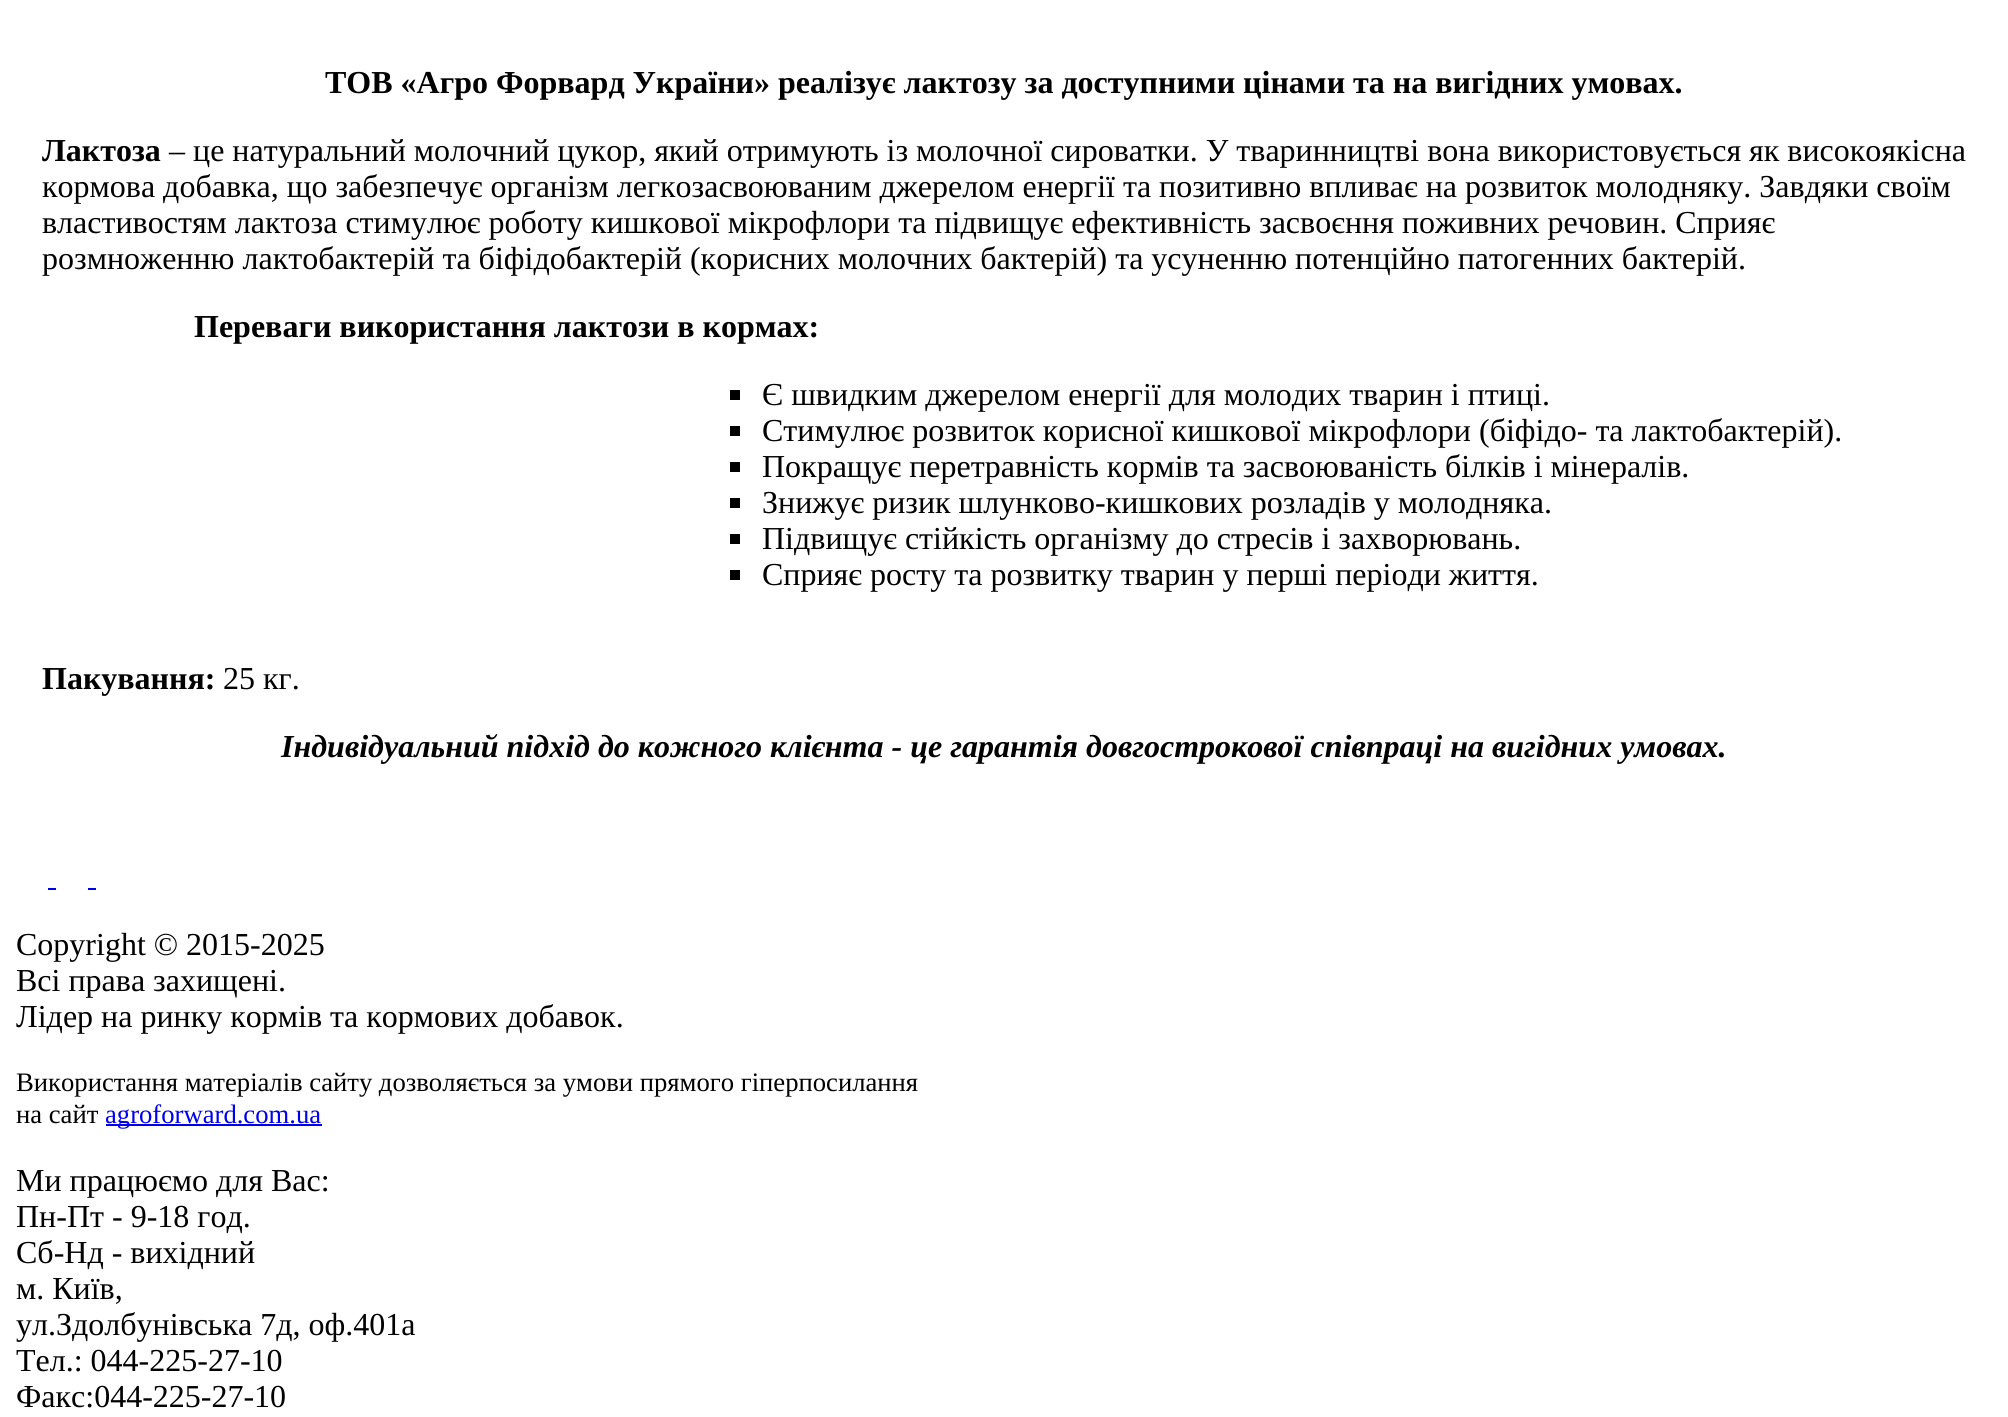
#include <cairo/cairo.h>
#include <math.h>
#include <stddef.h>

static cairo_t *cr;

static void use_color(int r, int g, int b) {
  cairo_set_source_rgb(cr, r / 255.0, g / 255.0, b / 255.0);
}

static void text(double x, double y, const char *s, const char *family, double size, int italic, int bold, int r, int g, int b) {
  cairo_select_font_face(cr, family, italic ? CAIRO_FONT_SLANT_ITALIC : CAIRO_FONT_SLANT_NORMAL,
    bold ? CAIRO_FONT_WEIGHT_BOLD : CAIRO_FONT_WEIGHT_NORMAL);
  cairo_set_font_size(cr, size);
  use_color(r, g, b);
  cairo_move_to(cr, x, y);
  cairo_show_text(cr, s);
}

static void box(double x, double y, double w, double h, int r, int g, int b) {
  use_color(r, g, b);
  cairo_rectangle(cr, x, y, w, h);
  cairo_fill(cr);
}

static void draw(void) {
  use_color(255, 255, 255);
  cairo_paint(cr);
  box(730, 390, 10, 10, 0, 0, 0);
  box(730, 426, 10, 10, 0, 0, 0);
  box(730, 462, 10, 10, 0, 0, 0);
  box(730, 498, 10, 10, 0, 0, 0);
  box(730, 534, 10, 10, 0, 0, 0);
  box(730, 570, 10, 10, 0, 0, 0);
  box(48, 888, 8, 2, 0, 0, 238);
  box(88, 888, 8, 2, 0, 0, 238);
  box(106, 1124, 216, 2, 0, 0, 238);
  text(325, 93, "ТОВ «Агро Форвард України» реалізує лактозу за доступними цінами та на вигідних умовах.", "Liberation Serif", 32, 0, 1, 0, 0, 0);
  text(42, 161, "Лактоза", "Liberation Serif", 32, 0, 1, 0, 0, 0);
  text(169, 161, "– це натуральний молочний цукор, який отримують із молочної сироватки. У тваринництві вона використовується як високоякісна", "Liberation Serif", 32, 0, 0, 0, 0, 0);
  text(42, 197, "кормова добавка, що забезпечує організм легкозасвоюваним джерелом енергії та позитивно впливає на розвиток молодняку. Завдяки своїм", "Liberation Serif", 32, 0, 0, 0, 0, 0);
  text(42, 233, "властивостям лактоза стимулює роботу кишкової мікрофлори та підвищує ефективність засвоєння поживних речовин. Сприяє", "Liberation Serif", 32, 0, 0, 0, 0, 0);
  text(42, 269, "розмноженню лактобактерій та біфідобактерій (корисних молочних бактерій) та усуненню потенційно патогенних бактерій.", "Liberation Serif", 32, 0, 0, 0, 0, 0);
  text(194, 337, "Переваги використання лактози в кормах:", "Liberation Serif", 32, 0, 1, 0, 0, 0);
  text(762, 405, "Є швидким джерелом енергії для молодих тварин і птиці.", "Liberation Serif", 32, 0, 0, 0, 0, 0);
  text(762, 441, "Стимулює розвиток корисної кишкової мікрофлори (біфідо- та лактобактерій).", "Liberation Serif", 32, 0, 0, 0, 0, 0);
  text(762, 477, "Покращує перетравність кормів та засвоюваність білків і мінералів.", "Liberation Serif", 32, 0, 0, 0, 0, 0);
  text(762, 513, "Знижує ризик шлунково-кишкових розладів у молодняка.", "Liberation Serif", 32, 0, 0, 0, 0, 0);
  text(762, 549, "Підвищує стійкість організму до стресів і захворювань.", "Liberation Serif", 32, 0, 0, 0, 0, 0);
  text(762, 585, "Сприяє росту та розвитку тварин у перші періоди життя.", "Liberation Serif", 32, 0, 0, 0, 0, 0);
  text(42, 689, "Пакування:", "Liberation Serif", 32, 0, 1, 0, 0, 0);
  text(223, 689, "25 кг.", "Liberation Serif", 32, 0, 0, 0, 0, 0);
  text(281, 757, "Індивідуальний підхід до кожного клієнта - це гарантія довгострокової співпраці на вигідних умовах.", "Liberation Serif", 32, 1, 1, 0, 0, 0);
  text(16, 955, "Copyright © 2015-2025", "Liberation Serif", 32, 0, 0, 0, 0, 0);
  text(16, 991, "Всі права захищені.", "Liberation Serif", 32, 0, 0, 0, 0, 0);
  text(16, 1027, "Лідер на ринку кормів та кормових добавок.", "Liberation Serif", 32, 0, 0, 0, 0, 0);
  text(16, 1091, "Використання матеріалів сайту дозволяється за умови прямого гіперпосилання", "Liberation Serif", 26.65, 0, 0, 0, 0, 0);
  text(16, 1123, "на сайт", "Liberation Serif", 26.65, 0, 0, 0, 0, 0);
  text(105, 1123, "agroforward.com.ua", "Liberation Serif", 26.65, 0, 0, 0, 0, 238);
  text(16, 1191, "Ми працюємо для Вас:", "Liberation Serif", 32, 0, 0, 0, 0, 0);
  text(16, 1227, "Пн-Пт - 9-18 год.", "Liberation Serif", 32, 0, 0, 0, 0, 0);
  text(16, 1263, "Cб-Нд - вихідний", "Liberation Serif", 32, 0, 0, 0, 0, 0);
  text(16, 1299, "м. Київ,", "Liberation Serif", 32, 0, 0, 0, 0, 0);
  text(16, 1335, "ул.Здолбунівська 7д, оф.401a", "Liberation Serif", 32, 0, 0, 0, 0, 0);
  text(16, 1371, "Тел.: 044-225-27-10", "Liberation Serif", 32, 0, 0, 0, 0, 0);
  text(16, 1407, "Факс:044-225-27-10", "Liberation Serif", 32, 0, 0, 0, 0, 0);
}

int main(void) {
  cairo_surface_t *surface = cairo_image_surface_create(CAIRO_FORMAT_RGB24, 2008, 1417);
  cr = cairo_create(surface);
  cairo_font_options_t *options = cairo_font_options_create();
  cairo_font_options_set_hint_metrics(options, CAIRO_HINT_METRICS_OFF);
  cairo_font_options_set_hint_style(options, CAIRO_HINT_STYLE_NONE);
  cairo_set_font_options(cr, options);
  cairo_set_miter_limit(cr, 4);
  draw();
  cairo_surface_write_to_png(surface, "out.png");
  cairo_font_options_destroy(options);
  cairo_destroy(cr);
  cairo_surface_destroy(surface);
  return 0;
}
